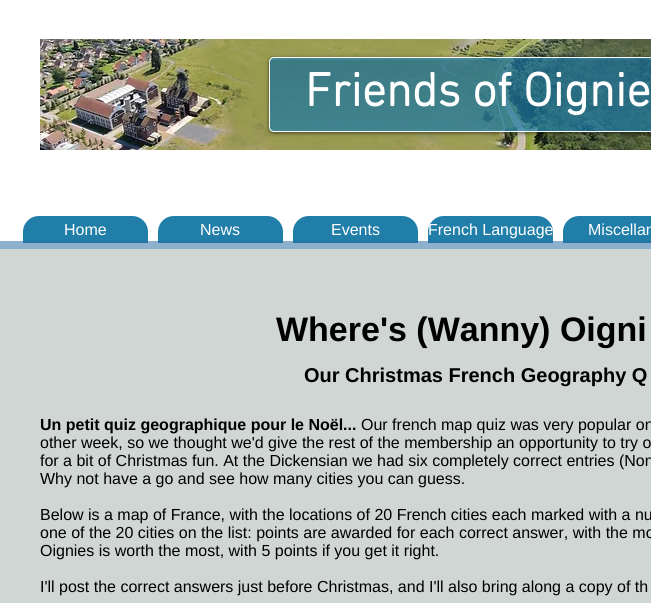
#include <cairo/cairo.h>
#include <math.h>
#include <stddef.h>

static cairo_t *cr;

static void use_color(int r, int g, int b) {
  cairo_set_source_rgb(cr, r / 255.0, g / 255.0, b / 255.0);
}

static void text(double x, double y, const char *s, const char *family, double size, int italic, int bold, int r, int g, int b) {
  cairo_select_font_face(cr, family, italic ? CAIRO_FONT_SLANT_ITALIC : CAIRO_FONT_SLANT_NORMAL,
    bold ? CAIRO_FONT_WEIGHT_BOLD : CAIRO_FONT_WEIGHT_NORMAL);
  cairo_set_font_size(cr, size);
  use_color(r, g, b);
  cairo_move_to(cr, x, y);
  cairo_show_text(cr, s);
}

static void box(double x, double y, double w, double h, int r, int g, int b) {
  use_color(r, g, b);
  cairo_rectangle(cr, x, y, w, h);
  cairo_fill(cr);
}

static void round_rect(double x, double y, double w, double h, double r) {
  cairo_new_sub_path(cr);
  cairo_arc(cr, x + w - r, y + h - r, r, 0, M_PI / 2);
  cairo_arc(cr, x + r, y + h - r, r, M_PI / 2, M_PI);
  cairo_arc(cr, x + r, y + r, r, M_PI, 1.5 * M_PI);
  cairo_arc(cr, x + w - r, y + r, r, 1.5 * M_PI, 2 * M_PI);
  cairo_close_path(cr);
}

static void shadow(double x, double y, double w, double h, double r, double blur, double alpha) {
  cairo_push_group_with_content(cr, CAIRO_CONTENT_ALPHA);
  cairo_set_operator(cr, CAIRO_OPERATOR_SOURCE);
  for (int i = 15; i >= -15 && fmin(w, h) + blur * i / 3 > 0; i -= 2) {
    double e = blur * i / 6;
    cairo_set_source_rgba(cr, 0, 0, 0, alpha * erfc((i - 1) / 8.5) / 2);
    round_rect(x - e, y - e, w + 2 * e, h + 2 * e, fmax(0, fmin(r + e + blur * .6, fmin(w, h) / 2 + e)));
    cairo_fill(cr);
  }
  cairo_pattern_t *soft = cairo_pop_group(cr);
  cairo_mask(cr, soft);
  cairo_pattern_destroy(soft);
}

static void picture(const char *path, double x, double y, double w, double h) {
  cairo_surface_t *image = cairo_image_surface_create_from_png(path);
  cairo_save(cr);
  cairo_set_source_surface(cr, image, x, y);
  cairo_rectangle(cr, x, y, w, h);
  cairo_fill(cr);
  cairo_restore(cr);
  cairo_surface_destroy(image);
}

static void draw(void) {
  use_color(255, 255, 255);
  cairo_paint(cr);
  box(0, 241, 651, 8, 141, 176, 205);
  picture("img_01.png", 40, 39, 611, 111);
  cairo_save(cr);
  cairo_set_fill_rule(cr, CAIRO_FILL_RULE_EVEN_ODD);
  cairo_new_path(cr);
  cairo_move_to(cr, 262, 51);
  cairo_line_to(cr, 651, 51);
  cairo_line_to(cr, 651, 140);
  cairo_line_to(cr, 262, 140);
  cairo_close_path(cr);
  cairo_move_to(cr, 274, 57);
  cairo_line_to(cr, 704, 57);
  cairo_curve_to(cr, 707, 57, 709, 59, 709, 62);
  cairo_line_to(cr, 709, 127);
  cairo_curve_to(cr, 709, 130, 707, 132, 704, 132);
  cairo_line_to(cr, 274, 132);
  cairo_curve_to(cr, 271, 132, 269, 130, 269, 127);
  cairo_line_to(cr, 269, 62);
  cairo_curve_to(cr, 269, 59, 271, 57, 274, 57);
  cairo_close_path(cr);
  cairo_clip(cr);
  use_color(0, 0, 0);
  shadow(269, 58, 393, 75, 5, 2, 0.6);
  cairo_restore(cr);
  cairo_set_source_rgba(cr, 0.125, 0.494, 0.663, 0.72);
  round_rect(269, 57, 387, 75, 5);
  cairo_fill(cr);
  picture("img_02.png", 269, 60, 382, 69);
  round_rect(269.5, 57.5, 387, 74, 4.5);
  use_color(255, 255, 255);
  cairo_set_line_width(cr, 1);
  cairo_stroke(cr);
  use_color(32, 126, 169);
  cairo_new_path(cr);
  cairo_move_to(cr, 39, 216);
  cairo_line_to(cr, 132, 216);
  cairo_curve_to(cr, 141, 216, 148, 223, 148, 232);
  cairo_line_to(cr, 148, 243);
  cairo_line_to(cr, 23, 243);
  cairo_line_to(cr, 23, 232);
  cairo_curve_to(cr, 23, 223, 30, 216, 39, 216);
  cairo_close_path(cr);
  cairo_fill(cr);
  box(23, 241, 125, 2, 38, 116, 166);
  use_color(32, 126, 169);
  cairo_new_path(cr);
  cairo_move_to(cr, 174, 216);
  cairo_line_to(cr, 267, 216);
  cairo_curve_to(cr, 276, 216, 283, 223, 283, 232);
  cairo_line_to(cr, 283, 243);
  cairo_line_to(cr, 158, 243);
  cairo_line_to(cr, 158, 232);
  cairo_curve_to(cr, 158, 223, 165, 216, 174, 216);
  cairo_close_path(cr);
  cairo_fill(cr);
  box(158, 241, 125, 2, 38, 116, 166);
  use_color(32, 126, 169);
  cairo_new_path(cr);
  cairo_move_to(cr, 309, 216);
  cairo_line_to(cr, 402, 216);
  cairo_curve_to(cr, 411, 216, 418, 223, 418, 232);
  cairo_line_to(cr, 418, 243);
  cairo_line_to(cr, 293, 243);
  cairo_line_to(cr, 293, 232);
  cairo_curve_to(cr, 293, 223, 300, 216, 309, 216);
  cairo_close_path(cr);
  cairo_fill(cr);
  box(293, 241, 125, 2, 38, 116, 166);
  use_color(32, 126, 169);
  cairo_new_path(cr);
  cairo_move_to(cr, 444, 216);
  cairo_line_to(cr, 537, 216);
  cairo_curve_to(cr, 546, 216, 553, 223, 553, 232);
  cairo_line_to(cr, 553, 243);
  cairo_line_to(cr, 428, 243);
  cairo_line_to(cr, 428, 232);
  cairo_curve_to(cr, 428, 223, 435, 216, 444, 216);
  cairo_close_path(cr);
  cairo_fill(cr);
  box(428, 241, 125, 2, 38, 116, 166);
  use_color(32, 126, 169);
  cairo_new_path(cr);
  cairo_move_to(cr, 579, 216);
  cairo_line_to(cr, 651, 216);
  cairo_curve_to(cr, 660, 216, 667, 223, 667, 232);
  cairo_line_to(cr, 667, 243);
  cairo_line_to(cr, 563, 243);
  cairo_line_to(cr, 563, 232);
  cairo_curve_to(cr, 563, 223, 570, 216, 579, 216);
  cairo_close_path(cr);
  cairo_fill(cr);
  box(563, 241, 88, 2, 38, 116, 166);
  box(0, 249, 651, 354, 208, 214, 212);
  text(305, 106, "Friends of Oignie", "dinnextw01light", 48, 0, 1, 255, 255, 255);
  text(64, 235, "Home", "Liberation Sans", 16, 0, 0, 255, 255, 255);
  text(200, 235, "News", "Liberation Sans", 16, 0, 0, 255, 255, 255);
  text(331, 235, "Events", "Liberation Sans", 16, 0, 0, 255, 255, 255);
  text(428, 235, "French Language", "Liberation Sans", 16, 0, 0, 255, 255, 255);
  text(588, 235, "Miscellan", "Liberation Sans", 16, 0, 0, 255, 255, 255);
  text(276, 341, "Where's (Wanny) Oigni", "Liberation Sans", 34, 0, 1, 0, 0, 0);
  text(304, 382, "Our Christmas French Geography Q", "Liberation Sans", 20, 0, 1, 0, 0, 0);
  text(40, 430, "Un petit quiz geographique pour le Noël...", "Liberation Sans", 16, 0, 1, 0, 0, 0);
  text(361, 430, "Our french map quiz was very popular on", "Liberation Sans", 16, 0, 0, 0, 0, 0);
  text(40, 448, "other week, so we thought we'd give the rest of the membership an opportunity to try o", "Liberation Sans", 16, 0, 0, 0, 0, 0);
  text(40, 466, "for a bit of Christmas fun. At the Dickensian we had six completely correct entries (Non", "Liberation Sans", 16, 0, 0, 0, 0, 0);
  text(40, 484, "Why not have a go and see how many cities you can guess.", "Liberation Sans", 16, 0, 0, 0, 0, 0);
  text(40, 520, "Below is a map of France, with the locations of 20 French cities each marked with a nu", "Liberation Sans", 16, 0, 0, 0, 0, 0);
  text(40, 538, "one of the 20 cities on the list: points are awarded for each correct answer, with the mo", "Liberation Sans", 16, 0, 0, 0, 0, 0);
  text(40, 556, "Oignies is worth the most, with 5 points if you get it right.", "Liberation Sans", 16, 0, 0, 0, 0, 0);
  text(40, 592, "I'll post the correct answers just before Christmas, and I'll also bring along a copy of th", "Liberation Sans", 16, 0, 0, 0, 0, 0);
}

int main(void) {
  cairo_surface_t *surface = cairo_image_surface_create(CAIRO_FORMAT_RGB24, 651, 603);
  cr = cairo_create(surface);
  cairo_font_options_t *options = cairo_font_options_create();
  cairo_font_options_set_hint_metrics(options, CAIRO_HINT_METRICS_OFF);
  cairo_font_options_set_hint_style(options, CAIRO_HINT_STYLE_NONE);
  cairo_set_font_options(cr, options);
  cairo_set_miter_limit(cr, 4);
  draw();
  cairo_surface_write_to_png(surface, "out.png");
  cairo_font_options_destroy(options);
  cairo_destroy(cr);
  cairo_surface_destroy(surface);
  return 0;
}
